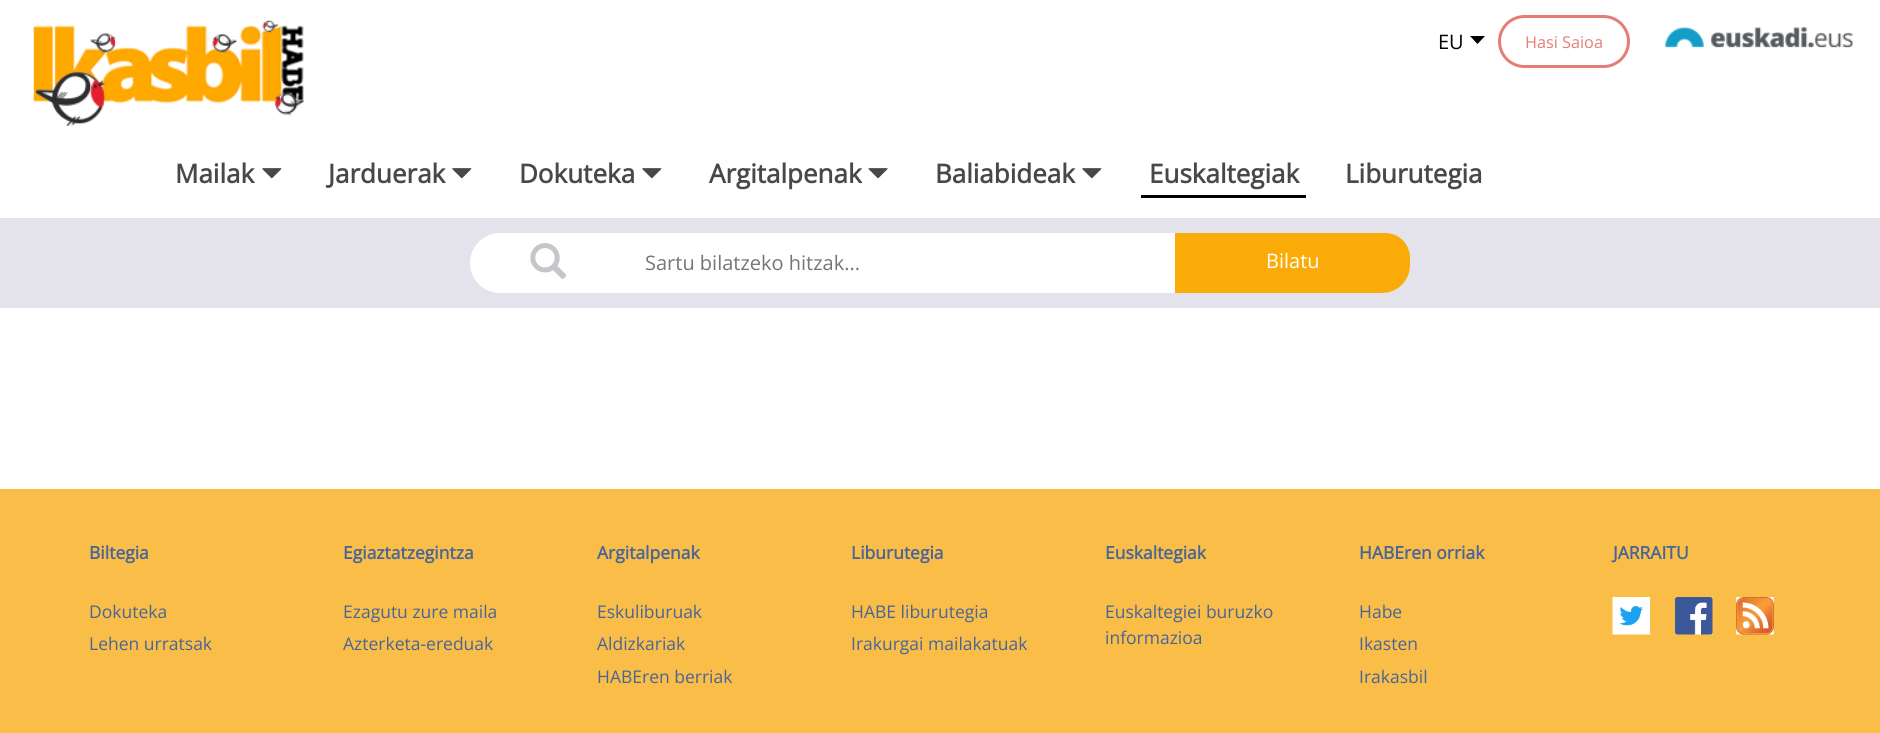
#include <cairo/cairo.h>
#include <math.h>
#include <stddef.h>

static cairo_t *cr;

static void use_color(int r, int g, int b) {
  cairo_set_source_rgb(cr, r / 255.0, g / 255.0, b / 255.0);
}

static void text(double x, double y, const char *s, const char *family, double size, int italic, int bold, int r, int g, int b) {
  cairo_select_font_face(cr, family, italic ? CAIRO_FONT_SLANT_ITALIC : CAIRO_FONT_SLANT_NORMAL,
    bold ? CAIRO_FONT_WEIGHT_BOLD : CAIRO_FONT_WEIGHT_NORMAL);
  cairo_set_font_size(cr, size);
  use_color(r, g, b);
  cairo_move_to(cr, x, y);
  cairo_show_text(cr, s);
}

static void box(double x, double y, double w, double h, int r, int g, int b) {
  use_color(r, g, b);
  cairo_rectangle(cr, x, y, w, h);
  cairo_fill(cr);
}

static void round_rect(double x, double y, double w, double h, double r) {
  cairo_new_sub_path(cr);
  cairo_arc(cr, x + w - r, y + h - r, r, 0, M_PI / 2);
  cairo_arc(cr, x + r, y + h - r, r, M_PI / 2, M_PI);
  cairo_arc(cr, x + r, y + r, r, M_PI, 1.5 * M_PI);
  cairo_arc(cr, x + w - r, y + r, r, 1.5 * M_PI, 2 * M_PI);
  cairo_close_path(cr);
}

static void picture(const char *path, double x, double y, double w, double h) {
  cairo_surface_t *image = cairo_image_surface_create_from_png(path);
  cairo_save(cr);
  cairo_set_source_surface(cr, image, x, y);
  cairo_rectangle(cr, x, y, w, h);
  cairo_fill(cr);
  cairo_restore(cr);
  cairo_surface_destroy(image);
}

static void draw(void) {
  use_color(255, 255, 255);
  cairo_paint(cr);
  picture("img_01.png", 33, 20, 271, 106);
  use_color(0, 0, 0);
  cairo_new_path(cr);
  cairo_move_to(cr, 1470, 36);
  cairo_line_to(cr, 1485, 36);
  cairo_line_to(cr, 1477.5, 44);
  cairo_close_path(cr);
  cairo_fill(cr);
  round_rect(1499.5, 16.5, 129, 50, 25);
  use_color(229, 125, 119);
  cairo_set_line_width(cr, 3);
  cairo_stroke(cr);
  picture("img_02.png", 1664, 26, 189, 22);
  picture("img_03.png", 262, 168, 20, 11);
  picture("img_03.png", 452, 168, 20, 11);
  picture("img_03.png", 642, 168, 20, 11);
  picture("img_04.png", 868, 168, 20, 11);
  picture("img_03.png", 1082, 168, 20, 11);
  box(1141, 195, 165, 3, 0, 0, 0);
  box(0, 218, 1880, 90, 228, 227, 235);
  use_color(255, 255, 255);
  round_rect(470, 233, 940, 60, 30);
  cairo_fill(cr);
  picture("img_05.png", 530, 243, 37, 36);
  use_color(251, 171, 7);
  cairo_new_path(cr);
  cairo_move_to(cr, 1175, 233);
  cairo_line_to(cr, 1385, 233);
  cairo_curve_to(cr, 1399, 233, 1410, 244, 1410, 258);
  cairo_line_to(cr, 1410, 265);
  cairo_curve_to(cr, 1410, 280.5, 1397.5, 293, 1382, 293);
  cairo_line_to(cr, 1175, 293);
  cairo_close_path(cr);
  cairo_fill(cr);
  box(0, 489, 1880, 244, 250, 189, 72);
  picture("img_06.png", 1612, 597, 38, 38);
  picture("img_07.png", 1675, 597, 38, 38);
  picture("img_08.png", 1736, 597, 38, 38);
  text(1438, 49, "EU", "Open Sans", 20, 0, 0, 0, 0, 0);
  text(1525, 48, "Hasi Saioa", "Open Sans", 16.25, 0, 0, 229, 125, 119);
  text(175, 183, "Mailak", "Open Sans", 26, 0, 1, 72, 72, 72);
  text(328, 183, "Jarduerak", "Open Sans", 26, 0, 1, 72, 72, 72);
  text(519, 183, "Dokuteka", "Open Sans", 26, 0, 1, 72, 72, 72);
  text(709, 183, "Argitalpenak", "Open Sans", 26, 0, 1, 72, 72, 72);
  text(935, 183, "Baliabideak", "Open Sans", 26, 0, 1, 72, 72, 72);
  text(1149, 183, "Euskaltegiak", "Open Sans", 26, 0, 1, 72, 72, 72);
  text(1345, 183, "Liburutegia", "Open Sans", 26, 0, 1, 72, 72, 72);
  text(645, 270, "Sartu bilatzeko hitzak...", "Open Sans", 20, 0, 0, 117, 117, 117);
  text(1266, 268, "Bilatu", "Open Sans", 20, 0, 0, 255, 255, 255);
  text(89, 559, "Biltegia", "Open Sans", 17.5, 0, 1, 71, 101, 151);
  text(89, 618, "Dokuteka", "Open Sans", 17.5, 0, 0, 71, 101, 151);
  text(89, 650, "Lehen urratsak", "Open Sans", 17.5, 0, 0, 71, 101, 151);
  text(343, 559, "Egiaztatzegintza", "Open Sans", 17.5, 0, 1, 71, 101, 151);
  text(343, 618, "Ezagutu zure maila", "Open Sans", 17.5, 0, 0, 71, 101, 151);
  text(343, 650, "Azterketa-ereduak", "Open Sans", 17.5, 0, 0, 71, 101, 151);
  text(597, 559, "Argitalpenak", "Open Sans", 17.5, 0, 1, 71, 101, 151);
  text(597, 618, "Eskuliburuak", "Open Sans", 17.5, 0, 0, 71, 101, 151);
  text(597, 650, "Aldizkariak", "Open Sans", 17.5, 0, 0, 71, 101, 151);
  text(597, 683, "HABEren berriak", "Open Sans", 17.5, 0, 0, 71, 101, 151);
  text(851, 559, "Liburutegia", "Open Sans", 17.5, 0, 1, 71, 101, 151);
  text(851, 618, "HABE liburutegia", "Open Sans", 17.5, 0, 0, 71, 101, 151);
  text(851, 650, "Irakurgai mailakatuak", "Open Sans", 17.5, 0, 0, 71, 101, 151);
  text(1105, 559, "Euskaltegiak", "Open Sans", 17.5, 0, 1, 71, 101, 151);
  text(1105, 618, "Euskaltegiei buruzko", "Open Sans", 17.5, 0, 0, 71, 101, 151);
  text(1105, 644, "informazioa", "Open Sans", 17.5, 0, 0, 71, 101, 151);
  text(1359, 559, "HABEren orriak", "Open Sans", 17.5, 0, 1, 71, 101, 151);
  text(1359, 618, "Habe", "Open Sans", 17.5, 0, 0, 71, 101, 151);
  text(1359, 650, "Ikasten", "Open Sans", 17.5, 0, 0, 71, 101, 151);
  text(1359, 683, "Irakasbil", "Open Sans", 17.5, 0, 0, 71, 101, 151);
  text(1613, 559, "JARRAITU", "Open Sans", 17.5, 0, 1, 71, 101, 151);
}

int main(void) {
  cairo_surface_t *surface = cairo_image_surface_create(CAIRO_FORMAT_RGB24, 1880, 733);
  cr = cairo_create(surface);
  cairo_font_options_t *options = cairo_font_options_create();
  cairo_font_options_set_hint_metrics(options, CAIRO_HINT_METRICS_OFF);
  cairo_font_options_set_hint_style(options, CAIRO_HINT_STYLE_NONE);
  cairo_set_font_options(cr, options);
  cairo_set_miter_limit(cr, 4);
  draw();
  cairo_surface_write_to_png(surface, "out.png");
  cairo_font_options_destroy(options);
  cairo_destroy(cr);
  cairo_surface_destroy(surface);
  return 0;
}
